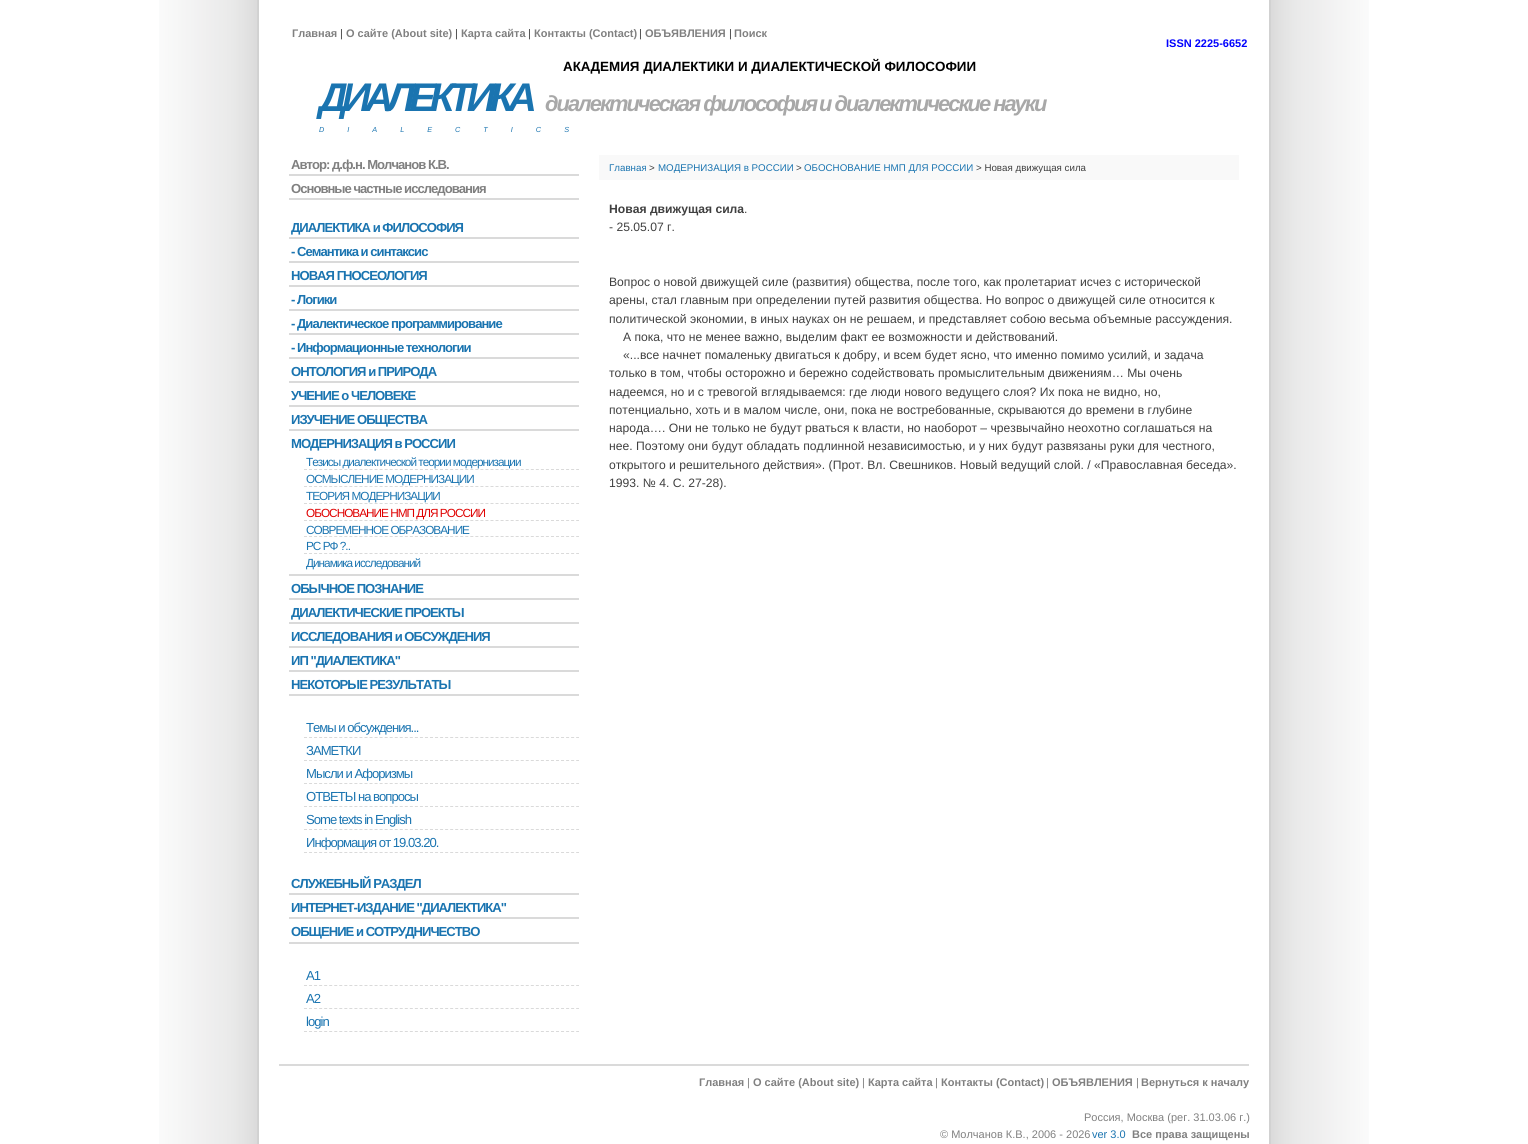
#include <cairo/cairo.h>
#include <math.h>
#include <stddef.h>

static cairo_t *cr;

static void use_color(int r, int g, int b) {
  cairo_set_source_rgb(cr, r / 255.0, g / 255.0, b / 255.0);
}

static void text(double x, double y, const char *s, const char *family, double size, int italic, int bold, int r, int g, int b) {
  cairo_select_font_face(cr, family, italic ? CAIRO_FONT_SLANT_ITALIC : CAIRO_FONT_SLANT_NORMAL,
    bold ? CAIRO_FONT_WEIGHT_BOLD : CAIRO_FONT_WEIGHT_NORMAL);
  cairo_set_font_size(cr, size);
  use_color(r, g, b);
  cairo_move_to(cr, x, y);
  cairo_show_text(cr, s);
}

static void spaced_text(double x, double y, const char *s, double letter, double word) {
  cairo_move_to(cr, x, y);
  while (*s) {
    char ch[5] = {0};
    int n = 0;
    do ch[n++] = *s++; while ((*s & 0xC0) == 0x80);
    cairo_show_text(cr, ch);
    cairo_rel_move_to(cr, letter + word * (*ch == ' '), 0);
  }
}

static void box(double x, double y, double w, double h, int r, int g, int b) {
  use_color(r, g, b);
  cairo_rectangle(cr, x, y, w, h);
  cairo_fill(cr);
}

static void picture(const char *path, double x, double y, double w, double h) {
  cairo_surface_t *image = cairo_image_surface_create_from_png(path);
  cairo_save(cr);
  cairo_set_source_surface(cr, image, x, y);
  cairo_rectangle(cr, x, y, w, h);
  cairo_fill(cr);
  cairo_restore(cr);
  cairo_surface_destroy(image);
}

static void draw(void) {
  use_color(255, 255, 255);
  cairo_paint(cr);
  picture("img_01.png", 159, 0, 1210, 1144);
  box(289, 174, 290, 2, 218, 218, 218);
  box(289, 198, 290, 2, 218, 218, 218);
  box(289, 237, 290, 2, 218, 218, 218);
  box(289, 261, 290, 2, 218, 218, 218);
  box(289, 285, 290, 2, 218, 218, 218);
  box(289, 309, 290, 2, 218, 218, 218);
  box(289, 333, 290, 2, 218, 218, 218);
  box(289, 357, 290, 2, 218, 218, 218);
  box(289, 381, 290, 2, 218, 218, 218);
  box(289, 405, 290, 2, 218, 218, 218);
  box(289, 429, 290, 2, 218, 218, 218);
  box(289, 574, 290, 2, 218, 218, 218);
  cairo_new_path(cr);
  cairo_move_to(cr, 304, 469.5);
  cairo_line_to(cr, 579, 469.5);
  cairo_set_line_width(cr, 1);
  cairo_set_dash(cr, (double[]){3, 2.04}, 2, 0);
  cairo_stroke(cr);
  cairo_new_path(cr);
  cairo_move_to(cr, 304, 486.5);
  cairo_line_to(cr, 579, 486.5);
  cairo_stroke(cr);
  cairo_new_path(cr);
  cairo_move_to(cr, 304, 503.5);
  cairo_line_to(cr, 579, 503.5);
  cairo_stroke(cr);
  cairo_new_path(cr);
  cairo_move_to(cr, 304, 520.5);
  cairo_line_to(cr, 579, 520.5);
  cairo_stroke(cr);
  cairo_new_path(cr);
  cairo_move_to(cr, 304, 536.5);
  cairo_line_to(cr, 579, 536.5);
  cairo_stroke(cr);
  cairo_new_path(cr);
  cairo_move_to(cr, 304, 553.5);
  cairo_line_to(cr, 579, 553.5);
  cairo_stroke(cr);
  box(289, 598, 290, 2, 218, 218, 218);
  box(289, 622, 290, 2, 218, 218, 218);
  box(289, 646, 290, 2, 218, 218, 218);
  box(289, 670, 290, 2, 218, 218, 218);
  box(289, 694, 290, 2, 218, 218, 218);
  cairo_new_path(cr);
  cairo_move_to(cr, 304, 737.5);
  cairo_line_to(cr, 579, 737.5);
  cairo_stroke(cr);
  cairo_new_path(cr);
  cairo_move_to(cr, 304, 760.5);
  cairo_line_to(cr, 579, 760.5);
  cairo_stroke(cr);
  cairo_new_path(cr);
  cairo_move_to(cr, 304, 783.5);
  cairo_line_to(cr, 579, 783.5);
  cairo_stroke(cr);
  cairo_new_path(cr);
  cairo_move_to(cr, 304, 806.5);
  cairo_line_to(cr, 579, 806.5);
  cairo_stroke(cr);
  cairo_new_path(cr);
  cairo_move_to(cr, 304, 829.5);
  cairo_line_to(cr, 579, 829.5);
  cairo_stroke(cr);
  cairo_new_path(cr);
  cairo_move_to(cr, 304, 852.5);
  cairo_line_to(cr, 579, 852.5);
  cairo_stroke(cr);
  box(289, 893, 290, 2, 218, 218, 218);
  box(289, 917, 290, 2, 218, 218, 218);
  box(289, 942, 290, 2, 218, 218, 218);
  cairo_new_path(cr);
  cairo_move_to(cr, 304, 985.5);
  cairo_line_to(cr, 579, 985.5);
  cairo_stroke(cr);
  cairo_new_path(cr);
  cairo_move_to(cr, 304, 1008.5);
  cairo_line_to(cr, 579, 1008.5);
  cairo_stroke(cr);
  cairo_new_path(cr);
  cairo_move_to(cr, 304, 1031.5);
  cairo_line_to(cr, 579, 1031.5);
  cairo_stroke(cr);
  box(599, 155, 640, 25, 249, 249, 249);
  box(279, 1064, 970, 2, 218, 218, 218);
  text(292, 37, "Главная", "Liberation Sans", 11, 0, 1, 128, 128, 128);
  text(340, 37, "|", "Liberation Sans", 11, 0, 0, 64, 64, 64);
  text(346, 37, "О сайте (About site)", "Liberation Sans", 11, 0, 1, 128, 128, 128);
  text(455, 37, "|", "Liberation Sans", 11, 0, 0, 64, 64, 64);
  text(461, 37, "Карта сайта", "Liberation Sans", 11, 0, 1, 128, 128, 128);
  text(528, 37, "|", "Liberation Sans", 11, 0, 0, 64, 64, 64);
  text(534, 37, "Контакты (Contact)", "Liberation Sans", 11, 0, 1, 128, 128, 128);
  text(639, 37, "|", "Liberation Sans", 11, 0, 0, 64, 64, 64);
  text(645, 37, "ОБЪЯВЛЕНИЯ", "Liberation Sans", 11, 0, 1, 128, 128, 128);
  text(729, 37, "|", "Liberation Sans", 11, 0, 0, 64, 64, 64);
  text(734, 37, "Поиск", "Liberation Sans", 11, 0, 1, 128, 128, 128);
  text(1166, 47, "ISSN 2225-6652", "Liberation Sans", 11, 0, 1, 0, 0, 255);
  text(563, 71, "АКАДЕМИЯ ДИАЛЕКТИКИ И ДИАЛЕКТИЧЕСКОЙ ФИЛОСОФИИ", "Liberation Sans", 13.4, 0, 1, 0, 0, 0);
  cairo_select_font_face(cr, "Liberation Sans", CAIRO_FONT_SLANT_ITALIC, CAIRO_FONT_WEIGHT_BOLD);
  cairo_set_font_size(cr, 40);
  use_color(26, 116, 176);
  spaced_text(319, 111, "ДИАЛЕКТИКА", -6, 0);
  cairo_set_font_size(cr, 21.9);
  use_color(168, 168, 168);
  spaced_text(545, 111, "диалектическая философия", -2, 0);
  spaced_text(819, 111, "и диалектические науки", -2, 0);
  cairo_select_font_face(cr, "Liberation Sans", CAIRO_FONT_SLANT_ITALIC, CAIRO_FONT_WEIGHT_NORMAL);
  cairo_set_font_size(cr, 7.3);
  use_color(26, 116, 176);
  spaced_text(319, 132, "DIALECTICS", 23, 0);
  cairo_select_font_face(cr, "Liberation Sans", CAIRO_FONT_SLANT_NORMAL, CAIRO_FONT_WEIGHT_BOLD);
  cairo_set_font_size(cr, 13.1);
  use_color(128, 128, 128);
  spaced_text(291, 169, "Автор: д.ф.н. Молчанов К.В.", -1, 0);
  spaced_text(291, 193, "Основные частные исследования", -1, 0);
  use_color(26, 116, 176);
  spaced_text(291, 232, "ДИАЛЕКТИКА и ФИЛОСОФИЯ", -1, 0);
  spaced_text(291, 256, "- Семантика и синтаксис", -1, 0);
  spaced_text(291, 280, "НОВАЯ ГНОСЕОЛОГИЯ", -1, 0);
  spaced_text(291, 304, "- Логики", -1, 0);
  spaced_text(291, 328, "- Диалектическое программирование", -1, 0);
  spaced_text(291, 352, "- Информационные технологии", -1, 0);
  spaced_text(291, 376, "ОНТОЛОГИЯ и ПРИРОДА", -1, 0);
  spaced_text(291, 400, "УЧЕНИЕ о ЧЕЛОВЕКЕ", -1, 0);
  spaced_text(291, 424, "ИЗУЧЕНИЕ ОБЩЕСТВА", -1, 0);
  spaced_text(291, 448, "МОДЕРНИЗАЦИЯ в РОССИИ", -1, 0);
  cairo_select_font_face(cr, "Liberation Sans", CAIRO_FONT_SLANT_NORMAL, CAIRO_FONT_WEIGHT_NORMAL);
  cairo_set_font_size(cr, 11.8);
  spaced_text(306, 466, "Тезисы диалектической теории модернизации", -1, 0);
  spaced_text(306, 483, "ОСМЫСЛЕНИЕ МОДЕРНИЗАЦИИ", -1, 0);
  spaced_text(306, 500, "ТЕОРИЯ МОДЕРНИЗАЦИИ", -1, 0);
  use_color(223, 0, 0);
  spaced_text(306, 517, "ОБОСНОВАНИЕ НМП ДЛЯ РОССИИ", -1, 0);
  use_color(26, 116, 176);
  spaced_text(306, 534, "СОВРЕМЕННОЕ ОБРАЗОВАНИЕ", -1, 0);
  spaced_text(306, 550, "РС РФ ?..", -1, 0);
  spaced_text(306, 567, "Динамика исследований", -1, 0);
  cairo_select_font_face(cr, "Liberation Sans", CAIRO_FONT_SLANT_NORMAL, CAIRO_FONT_WEIGHT_BOLD);
  cairo_set_font_size(cr, 13.1);
  spaced_text(291, 593, "ОБЫЧНОЕ ПОЗНАНИЕ", -1, 0);
  spaced_text(291, 617, "ДИАЛЕКТИЧЕСКИЕ ПРОЕКТЫ", -1, 0);
  spaced_text(291, 641, "ИССЛЕДОВАНИЯ и ОБСУЖДЕНИЯ", -1, 0);
  spaced_text(291, 665, "ИП \"ДИАЛЕКТИКА\"", -1, 0);
  spaced_text(291, 689, "НЕКОТОРЫЕ РЕЗУЛЬТАТЫ", -1, 0);
  cairo_select_font_face(cr, "Liberation Sans", CAIRO_FONT_SLANT_NORMAL, CAIRO_FONT_WEIGHT_NORMAL);
  spaced_text(306, 732, "Темы и обсуждения...", -1, 0);
  spaced_text(306, 755, "ЗАМЕТКИ", -1, 0);
  spaced_text(306, 778, "Мысли и Афоризмы", -1, 0);
  spaced_text(306, 801, "ОТВЕТЫ на вопросы", -1, 0);
  spaced_text(306, 824, "Some texts in English", -1, 0);
  spaced_text(306, 847, "Информация от 19.03.20.", -1, 0);
  cairo_select_font_face(cr, "Liberation Sans", CAIRO_FONT_SLANT_NORMAL, CAIRO_FONT_WEIGHT_BOLD);
  spaced_text(291, 888, "СЛУЖЕБНЫЙ РАЗДЕЛ", -1, 0);
  spaced_text(291, 912, "ИНТЕРНЕТ-ИЗДАНИЕ \"ДИАЛЕКТИКА\"", -1, 0);
  spaced_text(291, 936, "ОБЩЕНИЕ и СОТРУДНИЧЕСТВО", -1, 0);
  cairo_select_font_face(cr, "Liberation Sans", CAIRO_FONT_SLANT_NORMAL, CAIRO_FONT_WEIGHT_NORMAL);
  spaced_text(306, 980, "А1", -1, 0);
  spaced_text(306, 1003, "А2", -1, 0);
  spaced_text(306, 1026, "login", -1, 0);
  text(609, 171, "Главная", "Liberation Sans", 9.75, 0, 0, 26, 116, 176);
  text(649, 171, ">", "Liberation Sans", 9.75, 0, 0, 64, 64, 64);
  text(658, 171, "МОДЕРНИЗАЦИЯ в РОССИИ", "Liberation Sans", 9.75, 0, 0, 26, 116, 176);
  text(796, 171, ">", "Liberation Sans", 9.75, 0, 0, 64, 64, 64);
  text(804, 171, "ОБОСНОВАНИЕ НМП ДЛЯ РОССИИ", "Liberation Sans", 9.75, 0, 0, 26, 116, 176);
  text(976, 171, "> Новая движущая сила", "Liberation Sans", 9.75, 0, 0, 64, 64, 64);
  text(609, 213, "Новая движущая сила", "Liberation Sans", 12.15, 0, 1, 64, 64, 64);
  text(744, 213, ".", "Liberation Sans", 12.15, 0, 0, 64, 64, 64);
  text(609, 231, "- 25.05.07 г.", "Liberation Sans", 12.15, 0, 0, 64, 64, 64);
  text(609, 286, "Вопрос о новой движущей силе (развития) общества, после того, как пролетариат исчез с исторической", "Liberation Sans", 12.15, 0, 0, 64, 64, 64);
  text(609, 304, "арены, стал главным при определении путей развития общества. Но вопрос о движущей силе относится к", "Liberation Sans", 12.15, 0, 0, 64, 64, 64);
  text(609, 323, "политической экономии, в иных науках он не решаем, и представляет собою весьма объемные рассуждения.", "Liberation Sans", 12.15, 0, 0, 64, 64, 64);
  text(623, 341, "А пока, что не менее важно, выделим факт ее возможности и действований.", "Liberation Sans", 12.15, 0, 0, 64, 64, 64);
  text(623, 359, "«...все начнет помаленьку двигаться к добру, и всем будет ясно, что именно помимо усилий, и задача", "Liberation Sans", 12.15, 0, 0, 64, 64, 64);
  text(609, 377, "только в том, чтобы осторожно и бережно содействовать промыслительным движениям… Мы очень", "Liberation Sans", 12.15, 0, 0, 64, 64, 64);
  text(609, 396, "надеемся, но и с тревогой вглядываемся: где люди нового ведущего слоя? Их пока не видно, но,", "Liberation Sans", 12.15, 0, 0, 64, 64, 64);
  text(609, 414, "потенциально, хоть и в малом числе, они, пока не востребованные, скрываются до времени в глубине", "Liberation Sans", 12.15, 0, 0, 64, 64, 64);
  text(609, 432, "народа…. Они не только не будут рваться к власти, но наоборот – чрезвычайно неохотно соглашаться на", "Liberation Sans", 12.15, 0, 0, 64, 64, 64);
  text(609, 450, "нее. Поэтому они будут обладать подлинной независимостью, и у них будут развязаны руки для честного,", "Liberation Sans", 12.15, 0, 0, 64, 64, 64);
  text(609, 469, "открытого и решительного действия». (Прот. Вл. Свешников. Новый ведущий слой. / «Православная беседа».", "Liberation Sans", 12.15, 0, 0, 64, 64, 64);
  text(609, 487, "1993. № 4. С. 27-28).", "Liberation Sans", 12.15, 0, 0, 64, 64, 64);
  text(699, 1086, "Главная", "Liberation Sans", 11, 0, 1, 128, 128, 128);
  text(747, 1086, "|", "Liberation Sans", 11, 0, 0, 128, 128, 128);
  text(753, 1086, "О сайте (About site)", "Liberation Sans", 11, 0, 1, 128, 128, 128);
  text(862, 1086, "|", "Liberation Sans", 11, 0, 0, 128, 128, 128);
  text(868, 1086, "Карта сайта", "Liberation Sans", 11, 0, 1, 128, 128, 128);
  text(935, 1086, "|", "Liberation Sans", 11, 0, 0, 128, 128, 128);
  text(941, 1086, "Контакты (Contact)", "Liberation Sans", 11, 0, 1, 128, 128, 128);
  text(1046, 1086, "|", "Liberation Sans", 11, 0, 0, 128, 128, 128);
  text(1052, 1086, "ОБЪЯВЛЕНИЯ", "Liberation Sans", 11, 0, 1, 128, 128, 128);
  text(1136, 1086, "|", "Liberation Sans", 11, 0, 0, 128, 128, 128);
  text(1141, 1086, "Вернуться к началу", "Liberation Sans", 11, 0, 1, 128, 128, 128);
  text(1084, 1121, "Россия, Москва (рег. 31.03.06 г.)", "Liberation Sans", 11, 0, 0, 128, 128, 128);
  text(940, 1138, "© Молчанов К.В., 2006 - 2026", "Liberation Sans", 11, 0, 0, 128, 128, 128);
  text(1092, 1138, "ver 3.0", "Liberation Sans", 11, 0, 0, 26, 116, 176);
  text(1132, 1138, "Все права защищены", "Liberation Sans", 11, 0, 1, 128, 128, 128);
}

int main(void) {
  cairo_surface_t *surface = cairo_image_surface_create(CAIRO_FORMAT_RGB24, 1528, 1144);
  cr = cairo_create(surface);
  cairo_font_options_t *options = cairo_font_options_create();
  cairo_font_options_set_hint_metrics(options, CAIRO_HINT_METRICS_OFF);
  cairo_font_options_set_hint_style(options, CAIRO_HINT_STYLE_NONE);
  cairo_set_font_options(cr, options);
  cairo_set_miter_limit(cr, 4);
  draw();
  cairo_surface_write_to_png(surface, "out.png");
  cairo_font_options_destroy(options);
  cairo_destroy(cr);
  cairo_surface_destroy(surface);
  return 0;
}
